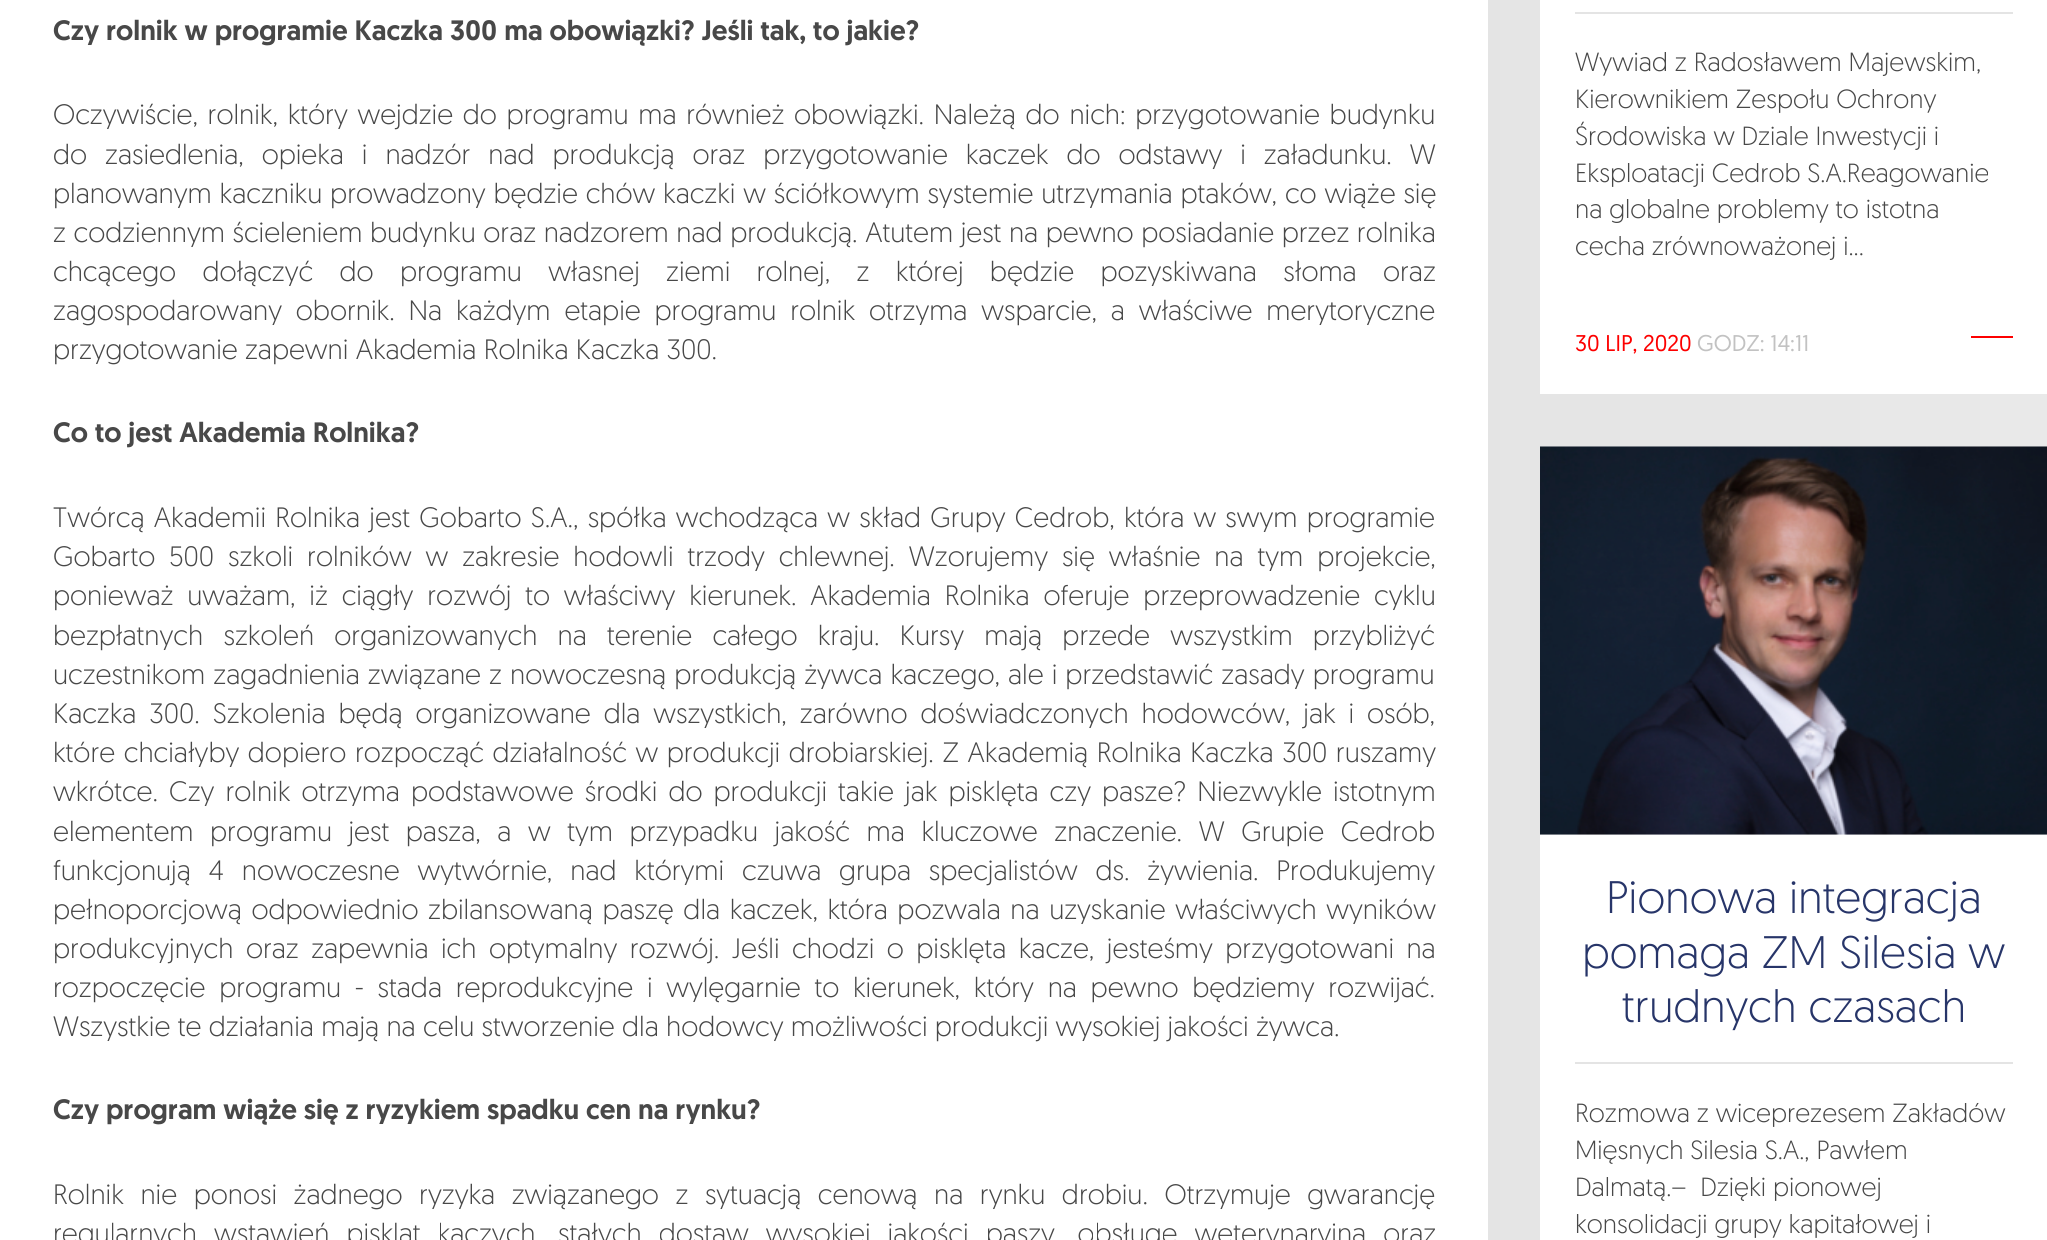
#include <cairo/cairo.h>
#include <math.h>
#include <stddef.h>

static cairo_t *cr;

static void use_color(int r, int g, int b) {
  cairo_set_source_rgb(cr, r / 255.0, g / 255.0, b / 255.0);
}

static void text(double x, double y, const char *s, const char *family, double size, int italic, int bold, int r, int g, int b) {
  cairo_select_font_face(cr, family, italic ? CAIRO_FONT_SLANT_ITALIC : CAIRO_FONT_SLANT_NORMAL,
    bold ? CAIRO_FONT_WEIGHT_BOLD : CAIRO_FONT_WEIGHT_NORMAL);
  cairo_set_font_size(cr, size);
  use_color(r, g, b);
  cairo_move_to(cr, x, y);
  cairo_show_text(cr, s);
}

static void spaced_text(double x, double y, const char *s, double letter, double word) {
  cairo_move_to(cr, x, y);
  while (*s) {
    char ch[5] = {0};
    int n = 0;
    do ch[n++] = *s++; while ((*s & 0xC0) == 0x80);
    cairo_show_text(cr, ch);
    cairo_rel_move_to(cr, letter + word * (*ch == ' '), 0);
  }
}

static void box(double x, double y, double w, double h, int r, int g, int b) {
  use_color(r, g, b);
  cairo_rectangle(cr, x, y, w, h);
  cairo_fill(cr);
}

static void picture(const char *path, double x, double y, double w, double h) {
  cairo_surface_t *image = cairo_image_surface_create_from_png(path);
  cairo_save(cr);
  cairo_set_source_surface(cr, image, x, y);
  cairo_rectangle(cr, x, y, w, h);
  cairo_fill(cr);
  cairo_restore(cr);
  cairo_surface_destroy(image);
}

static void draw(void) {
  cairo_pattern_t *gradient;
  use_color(255, 255, 255);
  cairo_paint(cr);
  gradient = cairo_pattern_create_linear(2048, 34, 0, 34);
  cairo_pattern_add_color_stop_rgba(gradient, 0, 0.914, 0.914, 0.914, 1);
  cairo_pattern_add_color_stop_rgba(gradient, 1, 0.847, 0.847, 0.847, 1);
  cairo_set_source(cr, gradient);
  cairo_pattern_destroy(gradient);
  cairo_rectangle(cr, 1488, 0, 559, 1240);
  cairo_fill(cr);
  box(1540, 0, 507, 394, 255, 255, 255);
  box(1575, 12, 438, 2, 228, 228, 228);
  box(1971, 336, 42, 2, 253, 0, 0);
  box(1540, 446, 507, 794, 255, 255, 255);
  picture("img_01.png", 1540, 446, 507, 389);
  box(1575, 1062, 438, 2, 228, 228, 228);
  text(53, 40, "Czy rolnik w programie Kaczka 300 ma obowiązki? Jeśli tak, to jakie?", "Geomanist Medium", 28, 0, 0, 72, 72, 72);
  cairo_select_font_face(cr, "Geomanist Light", CAIRO_FONT_SLANT_NORMAL, CAIRO_FONT_WEIGHT_NORMAL);
  spaced_text(53, 124, "Oczywiście, rolnik, który wejdzie do programu ma również obowiązki. Należą do nich: przygotowanie budynku", 0, 2.4);
  spaced_text(53, 164, "do zasiedlenia, opieka i nadzór nad produkcją oraz przygotowanie kaczek do odstawy i załadunku. W", 0, 10.6);
  spaced_text(53, 203, "planowanym kaczniku prowadzony będzie chów kaczki w ściółkowym systemie utrzymania ptaków, co wiąże się", 0, 0.5);
  spaced_text(53, 242, "z codziennym ścieleniem budynku oraz nadzorem nad produkcją. Atutem jest na pewno posiadanie przez rolnika", 0, 0.25);
  spaced_text(53, 281, "chcącego dołączyć do programu własnej ziemi rolnej, z której będzie pozyskiwana słoma oraz", 0, 19);
  spaced_text(53, 320, "zagospodarowany obornik. Na każdym etapie programu rolnik otrzyma wsparcie, a właściwe merytoryczne", 0, 6.5);
  text(53, 359, "przygotowanie zapewni Akademia Rolnika Kaczka 300.", "Geomanist Light", 28, 0, 0, 72, 72, 72);
  text(53, 442, "Co to jest Akademia Rolnika?", "Geomanist Medium", 28, 0, 0, 72, 72, 72);
  cairo_select_font_face(cr, "Geomanist Light", CAIRO_FONT_SLANT_NORMAL, CAIRO_FONT_WEIGHT_NORMAL);
  spaced_text(53, 527, "Twórcą Akademii Rolnika jest Gobarto S.A., spółka wchodząca w skład Grupy Cedrob, która w swym programie", 0, 1.9);
  spaced_text(53, 566, "Gobarto 500 szkoli rolników w zakresie hodowli trzody chlewnej. Wzorujemy się właśnie na tym projekcie,", 0, 6.6);
  spaced_text(53, 605, "ponieważ uważam, iż ciągły rozwój to właściwy kierunek. Akademia Rolnika oferuje przeprowadzenie cyklu", 0, 6.5);
  spaced_text(53, 645, "bezpłatnych szkoleń organizowanych na terenie całego kraju. Kursy mają przede wszystkim przybliżyć", 0, 12.9);
  spaced_text(53, 684, "uczestnikom zagadnienia związane z nowoczesną produkcją żywca kaczego, ale i przedstawić zasady programu", 0, 0.75);
  spaced_text(53, 723, "Kaczka 300. Szkolenia będą organizowane dla wszystkich, zarówno doświadczonych hodowców, jak i osób,", 0, 5.6);
  spaced_text(53, 762, "które chciałyby dopiero rozpocząć działalność w produkcji drobiarskiej. Z Akademią Rolnika Kaczka 300 ruszamy", 0, 1.25);
  spaced_text(53, 801, "wkrótce. Czy rolnik otrzyma podstawowe środki do produkcji takie jak pisklęta czy pasze? Niezwykle istotnym", 0, 3.75);
  spaced_text(53, 841, "elementem programu jest pasza, a w tym przypadku jakość ma kluczowe znaczenie. W Grupie Cedrob", 0, 9.25);
  spaced_text(53, 880, "funkcjonują 4 nowoczesne wytwórnie, nad którymi czuwa grupa specjalistów ds. żywienia. Produkujemy", 0, 10.5);
  spaced_text(53, 919, "pełnoporcjową odpowiednio zbilansowaną paszę dla kaczek, która pozwala na uzyskanie właściwych wyników", 0, 2.25);
  spaced_text(53, 958, "produkcyjnych oraz zapewnia ich optymalny rozwój. Jeśli chodzi o pisklęta kacze, jesteśmy przygotowani na", 0, 5.1);
  spaced_text(53, 997, "rozpoczęcie programu - stada reprodukcyjne i wylęgarnie to kierunek, który na pewno będziemy rozwijać.", 0, 6.4);
  text(53, 1036, "Wszystkie te działania mają na celu stworzenie dla hodowcy możliwości produkcji wysokiej jakości żywca.", "Geomanist Light", 28, 0, 0, 72, 72, 72);
  text(53, 1119, "Czy program wiąże się z ryzykiem spadku cen na rynku?", "Geomanist Medium", 28, 0, 0, 72, 72, 72);
  cairo_select_font_face(cr, "Geomanist Light", CAIRO_FONT_SLANT_NORMAL, CAIRO_FONT_WEIGHT_NORMAL);
  spaced_text(53, 1204, "Rolnik nie ponosi żadnego ryzyka związanego z sytuacją cenową na rynku drobiu. Otrzymuje gwarancję", 0, 9.25);
  spaced_text(53, 1243, "regularnych wstawień piskląt kaczych, stałych dostaw wysokiej jakości paszy, obsługę weterynaryjną oraz", 0, 9.75);
  text(1575, 71, "Wywiad z Radosławem Majewskim,", "Geomanist Light", 26.25, 0, 0, 72, 72, 72);
  text(1575, 108, "Kierownikiem Zespołu Ochrony", "Geomanist Light", 26.25, 0, 0, 72, 72, 72);
  text(1575, 145, "Środowiska w Dziale Inwestycji i", "Geomanist Light", 26.25, 0, 0, 72, 72, 72);
  text(1575, 182, "Eksploatacji Cedrob S.A.Reagowanie", "Geomanist Light", 26.25, 0, 0, 72, 72, 72);
  text(1575, 218, "na globalne problemy to istotna", "Geomanist Light", 26.25, 0, 0, 72, 72, 72);
  text(1575, 255, "cecha zrównoważonej i...", "Geomanist Light", 26.25, 0, 0, 72, 72, 72);
  text(1575, 351, "30 LIP, 2020", "Geomanist", 22.75, 0, 0, 253, 0, 0);
  text(1697, 351, "GODZ: 14:11", "Geomanist", 22.75, 0, 0, 194, 194, 194);
  text(1606, 913, "Pionowa integracja", "Geomanist Light", 45.5, 0, 0, 39, 53, 105);
  text(1582, 968, "pomaga ZM Silesia w", "Geomanist Light", 45.5, 0, 0, 39, 53, 105);
  text(1622, 1022, "trudnych czasach", "Geomanist Light", 45.5, 0, 0, 39, 53, 105);
  text(1575, 1122, "Rozmowa z wiceprezesem Zakładów", "Geomanist Light", 26.25, 0, 0, 72, 72, 72);
  text(1575, 1159, "Mięsnych Silesia S.A., Pawłem", "Geomanist Light", 26.25, 0, 0, 72, 72, 72);
  text(1575, 1196, "Dalmatą.–  Dzięki pionowej", "Geomanist Light", 26.25, 0, 0, 72, 72, 72);
  text(1575, 1233, "konsolidacji grupy kapitałowej i", "Geomanist Light", 26.25, 0, 0, 72, 72, 72);
}

int main(void) {
  cairo_surface_t *surface = cairo_image_surface_create(CAIRO_FORMAT_RGB24, 2047, 1240);
  cr = cairo_create(surface);
  cairo_font_options_t *options = cairo_font_options_create();
  cairo_font_options_set_hint_metrics(options, CAIRO_HINT_METRICS_OFF);
  cairo_font_options_set_hint_style(options, CAIRO_HINT_STYLE_NONE);
  cairo_set_font_options(cr, options);
  cairo_set_miter_limit(cr, 4);
  draw();
  cairo_surface_write_to_png(surface, "out.png");
  cairo_font_options_destroy(options);
  cairo_destroy(cr);
  cairo_surface_destroy(surface);
  return 0;
}
